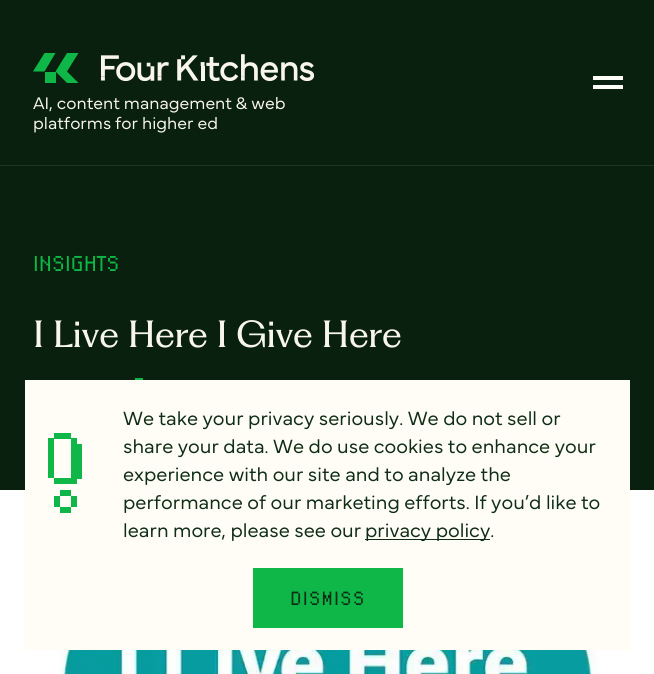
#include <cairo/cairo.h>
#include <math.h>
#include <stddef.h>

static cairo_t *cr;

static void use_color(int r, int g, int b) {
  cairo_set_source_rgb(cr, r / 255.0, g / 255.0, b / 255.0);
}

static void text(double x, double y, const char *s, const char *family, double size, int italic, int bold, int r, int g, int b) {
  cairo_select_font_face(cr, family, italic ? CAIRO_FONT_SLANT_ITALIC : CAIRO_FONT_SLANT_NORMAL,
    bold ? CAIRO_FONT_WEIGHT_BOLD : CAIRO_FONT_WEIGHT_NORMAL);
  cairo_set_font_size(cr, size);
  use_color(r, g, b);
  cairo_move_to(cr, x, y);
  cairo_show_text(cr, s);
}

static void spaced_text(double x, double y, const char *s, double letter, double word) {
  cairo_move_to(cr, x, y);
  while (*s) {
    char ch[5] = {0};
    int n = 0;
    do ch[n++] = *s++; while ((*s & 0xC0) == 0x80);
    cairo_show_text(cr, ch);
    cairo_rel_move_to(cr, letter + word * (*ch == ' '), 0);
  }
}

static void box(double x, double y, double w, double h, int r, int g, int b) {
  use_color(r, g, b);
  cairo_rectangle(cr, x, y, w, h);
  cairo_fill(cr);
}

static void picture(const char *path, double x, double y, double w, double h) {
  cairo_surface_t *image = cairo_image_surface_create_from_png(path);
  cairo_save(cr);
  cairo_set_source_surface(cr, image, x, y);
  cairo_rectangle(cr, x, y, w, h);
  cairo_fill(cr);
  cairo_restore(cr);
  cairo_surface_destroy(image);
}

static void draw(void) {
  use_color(8, 32, 13);
  cairo_paint(cr);
  box(0, 165, 654, 1, 33, 54, 36);
  box(593, 76, 30, 4, 255, 253, 246);
  box(593, 85, 30, 4, 255, 253, 246);
  box(45, 72, 11, 11, 14, 183, 71);
  cairo_new_path(cr);
  cairo_move_to(cr, 55.5, 53);
  cairo_line_to(cr, 44.5, 53);
  cairo_line_to(cr, 33, 71.5);
  cairo_line_to(cr, 44.5, 71.5);
  cairo_close_path(cr);
  cairo_fill(cr);
  cairo_new_path(cr);
  cairo_move_to(cr, 67, 71.5);
  cairo_line_to(cr, 78.5, 53);
  cairo_line_to(cr, 67, 53);
  cairo_line_to(cr, 55.5, 71.5);
  cairo_line_to(cr, 67, 83);
  cairo_line_to(cr, 78.5, 83);
  cairo_close_path(cr);
  cairo_fill(cr);
  picture("img_01.png", 100, 54, 215, 27);
  box(135, 378, 8, 2, 14, 183, 71);
  picture("img_02.png", 0, 490, 654, 184);
  box(25, 380, 605, 270, 255, 253, 246);
  box(60, 507, 11, 6, 14, 183, 71);
  box(71, 496, 6, 11, 14, 183, 71);
  box(60, 490, 11, 6, 14, 183, 71);
  cairo_new_path(cr);
  cairo_move_to(cr, 77, 444);
  cairo_line_to(cr, 77, 438);
  cairo_line_to(cr, 71, 438);
  cairo_line_to(cr, 71, 478);
  cairo_line_to(cr, 54, 478);
  cairo_line_to(cr, 54, 484);
  cairo_line_to(cr, 77, 484);
  cairo_line_to(cr, 77, 479);
  cairo_line_to(cr, 82, 479);
  cairo_line_to(cr, 82, 444);
  cairo_close_path(cr);
  cairo_fill(cr);
  box(48, 438, 6, 40, 14, 183, 71);
  box(54, 433, 17, 6, 14, 183, 71);
  box(54, 496, 6, 11, 14, 183, 71);
  box(365, 539, 125, 1, 15, 44, 21);
  box(253, 568, 150, 60, 14, 183, 71);
  text(33, 109, "AI, content management & web", "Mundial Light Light", 17.5, 0, 0, 248, 245, 236);
  text(33, 129, "platforms for higher ed", "Mundial Light Light", 17.5, 0, 0, 248, 245, 236);
  text(33, 271, "INSIGHTS", "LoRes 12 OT", 22.5, 0, 0, 14, 183, 71);
  cairo_select_font_face(cr, "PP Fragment", CAIRO_FONT_SLANT_NORMAL, CAIRO_FONT_WEIGHT_NORMAL);
  cairo_set_font_size(cr, 35);
  use_color(248, 245, 236);
  spaced_text(33, 347, "I Live Here I Give Here", -0.35, 0);
  text(123, 425, "We take your privacy seriously. We do not sell or", "Mundial Light Light", 20, 0, 0, 15, 44, 21);
  text(123, 453, "share your data. We do use cookies to enhance your", "Mundial Light Light", 20, 0, 0, 15, 44, 21);
  text(123, 481, "experience with our site and to analyze the", "Mundial Light Light", 20, 0, 0, 15, 44, 21);
  text(123, 509, "performance of our marketing efforts. If you’d like to", "Mundial Light Light", 20, 0, 0, 15, 44, 21);
  text(123, 537, "learn more, please see our", "Mundial Light Light", 20, 0, 0, 15, 44, 21);
  text(365, 537, "privacy policy.", "Mundial Light Light", 20, 0, 0, 15, 44, 21);
  cairo_select_font_face(cr, "LoRes 12 OT", CAIRO_FONT_SLANT_NORMAL, CAIRO_FONT_WEIGHT_NORMAL);
  spaced_text(290, 605, "DISMISS", 1, 0);
}

int main(void) {
  cairo_surface_t *surface = cairo_image_surface_create(CAIRO_FORMAT_RGB24, 654, 674);
  cr = cairo_create(surface);
  cairo_font_options_t *options = cairo_font_options_create();
  cairo_font_options_set_hint_metrics(options, CAIRO_HINT_METRICS_OFF);
  cairo_font_options_set_hint_style(options, CAIRO_HINT_STYLE_NONE);
  cairo_set_font_options(cr, options);
  cairo_set_miter_limit(cr, 4);
  draw();
  cairo_surface_write_to_png(surface, "out.png");
  cairo_font_options_destroy(options);
  cairo_destroy(cr);
  cairo_surface_destroy(surface);
  return 0;
}
